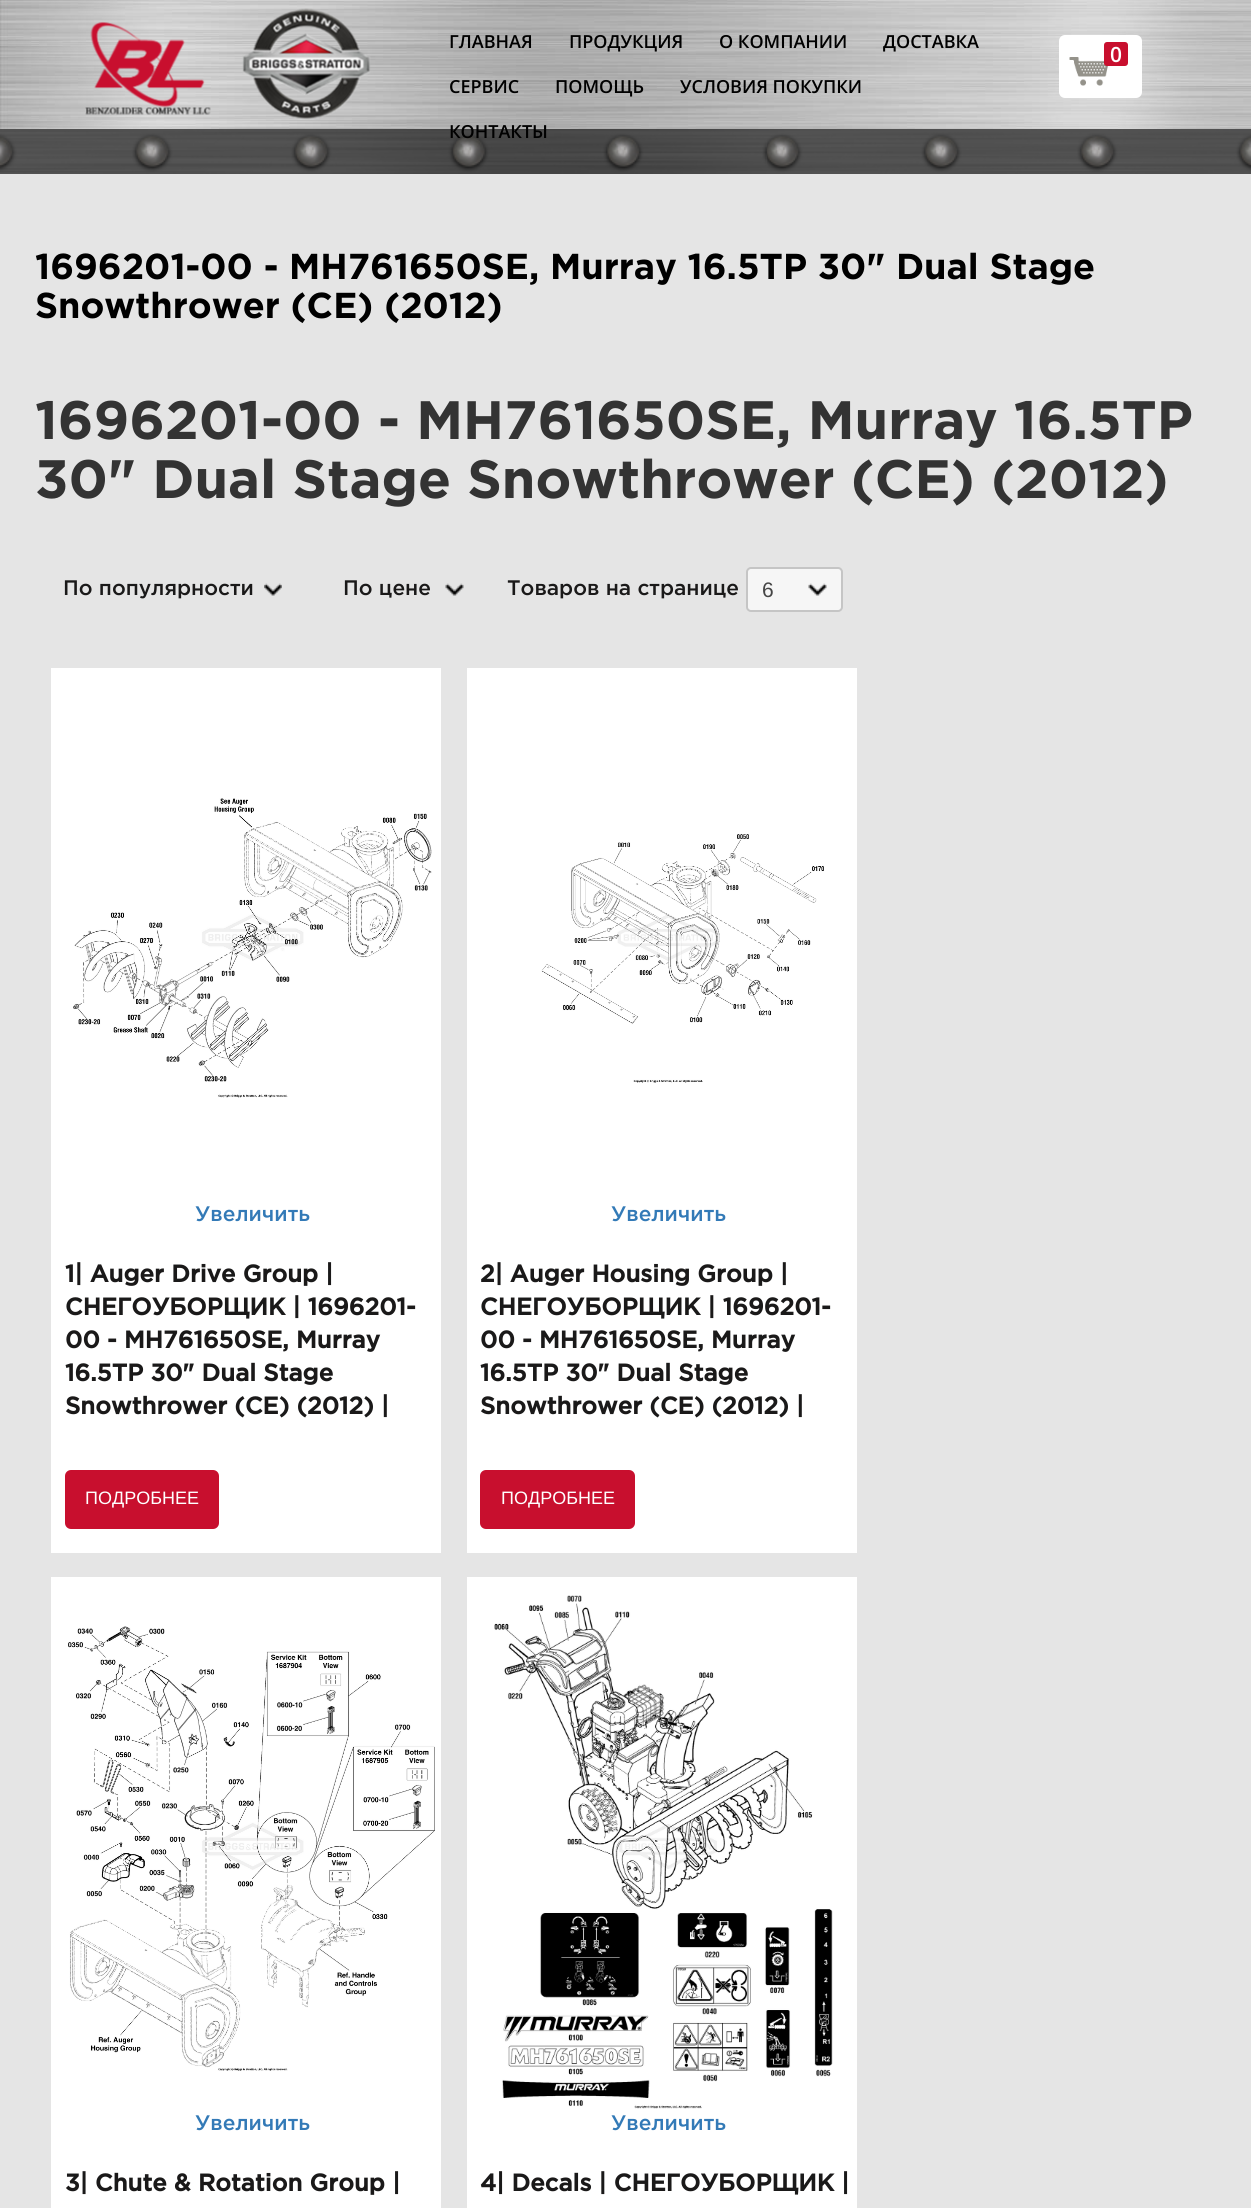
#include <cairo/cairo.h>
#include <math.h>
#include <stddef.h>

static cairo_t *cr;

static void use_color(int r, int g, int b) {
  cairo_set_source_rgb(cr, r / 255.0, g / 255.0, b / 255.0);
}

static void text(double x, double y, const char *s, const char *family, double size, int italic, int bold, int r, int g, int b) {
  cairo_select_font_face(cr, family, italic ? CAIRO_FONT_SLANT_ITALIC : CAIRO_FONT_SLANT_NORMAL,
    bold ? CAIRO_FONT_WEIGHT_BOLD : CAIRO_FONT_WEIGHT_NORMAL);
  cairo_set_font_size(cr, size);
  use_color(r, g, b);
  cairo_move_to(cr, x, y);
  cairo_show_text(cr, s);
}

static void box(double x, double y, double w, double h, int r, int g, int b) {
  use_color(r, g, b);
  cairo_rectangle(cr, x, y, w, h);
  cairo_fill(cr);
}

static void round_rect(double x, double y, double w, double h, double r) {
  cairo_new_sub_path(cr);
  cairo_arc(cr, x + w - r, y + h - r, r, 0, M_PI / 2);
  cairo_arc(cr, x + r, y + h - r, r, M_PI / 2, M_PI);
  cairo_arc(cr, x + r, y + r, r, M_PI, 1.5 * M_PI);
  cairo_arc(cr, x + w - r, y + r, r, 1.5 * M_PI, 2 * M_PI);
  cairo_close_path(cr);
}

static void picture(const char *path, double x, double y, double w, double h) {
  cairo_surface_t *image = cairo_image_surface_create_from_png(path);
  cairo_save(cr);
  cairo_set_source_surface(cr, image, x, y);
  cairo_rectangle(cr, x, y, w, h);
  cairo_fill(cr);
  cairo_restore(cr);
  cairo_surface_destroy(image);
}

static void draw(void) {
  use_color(229, 229, 229);
  cairo_paint(cr);
  picture("img_01.png", 0, 0, 1251, 129);
  picture("img_02.png", 85, 22, 126, 93);
  picture("img_03.png", 242, 8, 129, 112);
  use_color(255, 255, 255);
  round_rect(1059, 35, 83, 63, 6);
  cairo_fill(cr);
  picture("img_04.png", 1069, 57, 39, 29);
  use_color(200, 15, 46);
  round_rect(1104, 42, 24, 24, 3);
  cairo_fill(cr);
  picture("img_05.png", 0, 129, 1251, 45);
  picture("img_06.png", 264, 583, 18, 13);
  picture("img_07.png", 445, 583, 19, 13);
  use_color(246, 246, 246);
  round_rect(747, 568, 95, 43, 4);
  cairo_fill_preserve(cr);
  use_color(197, 197, 197);
  cairo_stroke(cr);
  picture("img_08.png", 808, 583, 19, 13);
  box(51, 668, 390, 885, 255, 255, 255);
  picture("img_09.png", 73, 798, 359, 300);
  use_color(200, 15, 46);
  round_rect(66, 1471, 152, 57, 5);
  cairo_fill_preserve(cr);
  cairo_stroke(cr);
  box(467, 668, 390, 885, 255, 255, 255);
  picture("img_10.png", 541, 834, 283, 249);
  use_color(200, 15, 46);
  round_rect(481, 1471, 153, 57, 5);
  cairo_fill_preserve(cr);
  cairo_stroke(cr);
  box(51, 1577, 390, 631, 255, 255, 255);
  picture("img_11.png", 68, 1626, 367, 445);
  box(467, 1577, 390, 631, 255, 255, 255);
  picture("img_12.png", 494, 1595, 339, 514);
  text(449, 48, "ГЛАВНАЯ", "Open Sans SemiBold", 18, 0, 0, 0, 0, 0);
  text(569, 48, "ПРОДУКЦИЯ", "Open Sans SemiBold", 18, 0, 0, 0, 0, 0);
  text(719, 48, "О КОМПАНИИ", "Open Sans SemiBold", 18, 0, 0, 0, 0, 0);
  text(883, 48, "ДОСТАВКА", "Open Sans SemiBold", 18, 0, 0, 0, 0, 0);
  text(449, 93, "СЕРВИС", "Open Sans SemiBold", 18, 0, 0, 0, 0, 0);
  text(555, 93, "ПОМОЩЬ", "Open Sans SemiBold", 18, 0, 0, 0, 0, 0);
  text(680, 93, "УСЛОВИЯ ПОКУПКИ", "Open Sans SemiBold", 18, 0, 0, 0, 0, 0);
  text(449, 138, "КОНТАКТЫ", "Open Sans SemiBold", 18, 0, 0, 0, 0, 0);
  text(1110, 62, "0", "Open Sans SemiBold", 21, 0, 0, 255, 255, 255);
  text(35, 279, "1696201-00 - MH761650SE, Murray 16.5TP 30\" Dual Stage", "Gotham", 36, 0, 1, 0, 0, 0);
  text(35, 318, "Snowthrower (CE) (2012)", "Gotham", 36, 0, 1, 0, 0, 0);
  text(35, 439, "1696201-00 - MH761650SE, Murray 16.5TP", "Gotham", 54, 0, 1, 51, 51, 51);
  text(35, 498, "30\" Dual Stage Snowthrower (CE) (2012)", "Gotham", 54, 0, 1, 51, 51, 51);
  text(63, 595, "По популярности", "Gotham Medium", 21, 0, 0, 26, 25, 25);
  text(343, 595, "По цене", "Gotham Medium", 21, 0, 0, 26, 25, 25);
  text(507, 595, "Товаров на странице", "Gotham Medium", 21, 0, 0, 26, 25, 25);
  text(762, 597, "6", "Liberation Sans", 21, 0, 0, 69, 69, 69);
  text(195, 1221, "Увеличить", "Gotham Medium", 21, 0, 0, 51, 122, 183);
  text(65, 1282, "1| Auger Drive Group |", "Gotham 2", 24, 0, 1, 26, 25, 25);
  text(65, 1315, "СНЕГОУБОРЩИК | 1696201-", "Gotham 2", 24, 0, 1, 26, 25, 25);
  text(65, 1348, "00 - MH761650SE, Murray", "Gotham 2", 24, 0, 1, 26, 25, 25);
  text(65, 1381, "16.5TP 30\" Dual Stage", "Gotham 2", 24, 0, 1, 26, 25, 25);
  text(65, 1414, "Snowthrower (CE) (2012) |", "Gotham 2", 24, 0, 1, 26, 25, 25);
  text(85, 1504, "ПОДРОБНЕЕ", "Liberation Sans", 18, 0, 0, 255, 255, 255);
  text(611, 1221, "Увеличить", "Gotham Medium", 21, 0, 0, 51, 122, 183);
  text(480, 1282, "2| Auger Housing Group |", "Gotham 2", 24, 0, 1, 26, 25, 25);
  text(480, 1315, "СНЕГОУБОРЩИК | 1696201-", "Gotham 2", 24, 0, 1, 26, 25, 25);
  text(480, 1348, "00 - MH761650SE, Murray", "Gotham 2", 24, 0, 1, 26, 25, 25);
  text(480, 1381, "16.5TP 30\" Dual Stage", "Gotham 2", 24, 0, 1, 26, 25, 25);
  text(480, 1414, "Snowthrower (CE) (2012) |", "Gotham 2", 24, 0, 1, 26, 25, 25);
  text(501, 1504, "ПОДРОБНЕЕ", "Liberation Sans", 18, 0, 0, 255, 255, 255);
  text(195, 2130, "Увеличить", "Gotham Medium", 21, 0, 0, 51, 122, 183);
  text(65, 2191, "3| Chute & Rotation Group |", "Gotham 2", 24, 0, 1, 26, 25, 25);
  text(611, 2130, "Увеличить", "Gotham Medium", 21, 0, 0, 51, 122, 183);
  text(480, 2191, "4| Decals | СНЕГОУБОРЩИК |", "Gotham 2", 24, 0, 1, 26, 25, 25);
}

int main(void) {
  cairo_surface_t *surface = cairo_image_surface_create(CAIRO_FORMAT_RGB24, 1251, 2208);
  cr = cairo_create(surface);
  cairo_font_options_t *options = cairo_font_options_create();
  cairo_font_options_set_hint_metrics(options, CAIRO_HINT_METRICS_OFF);
  cairo_font_options_set_hint_style(options, CAIRO_HINT_STYLE_NONE);
  cairo_set_font_options(cr, options);
  cairo_set_miter_limit(cr, 4);
  draw();
  cairo_surface_write_to_png(surface, "out.png");
  cairo_font_options_destroy(options);
  cairo_destroy(cr);
  cairo_surface_destroy(surface);
  return 0;
}
